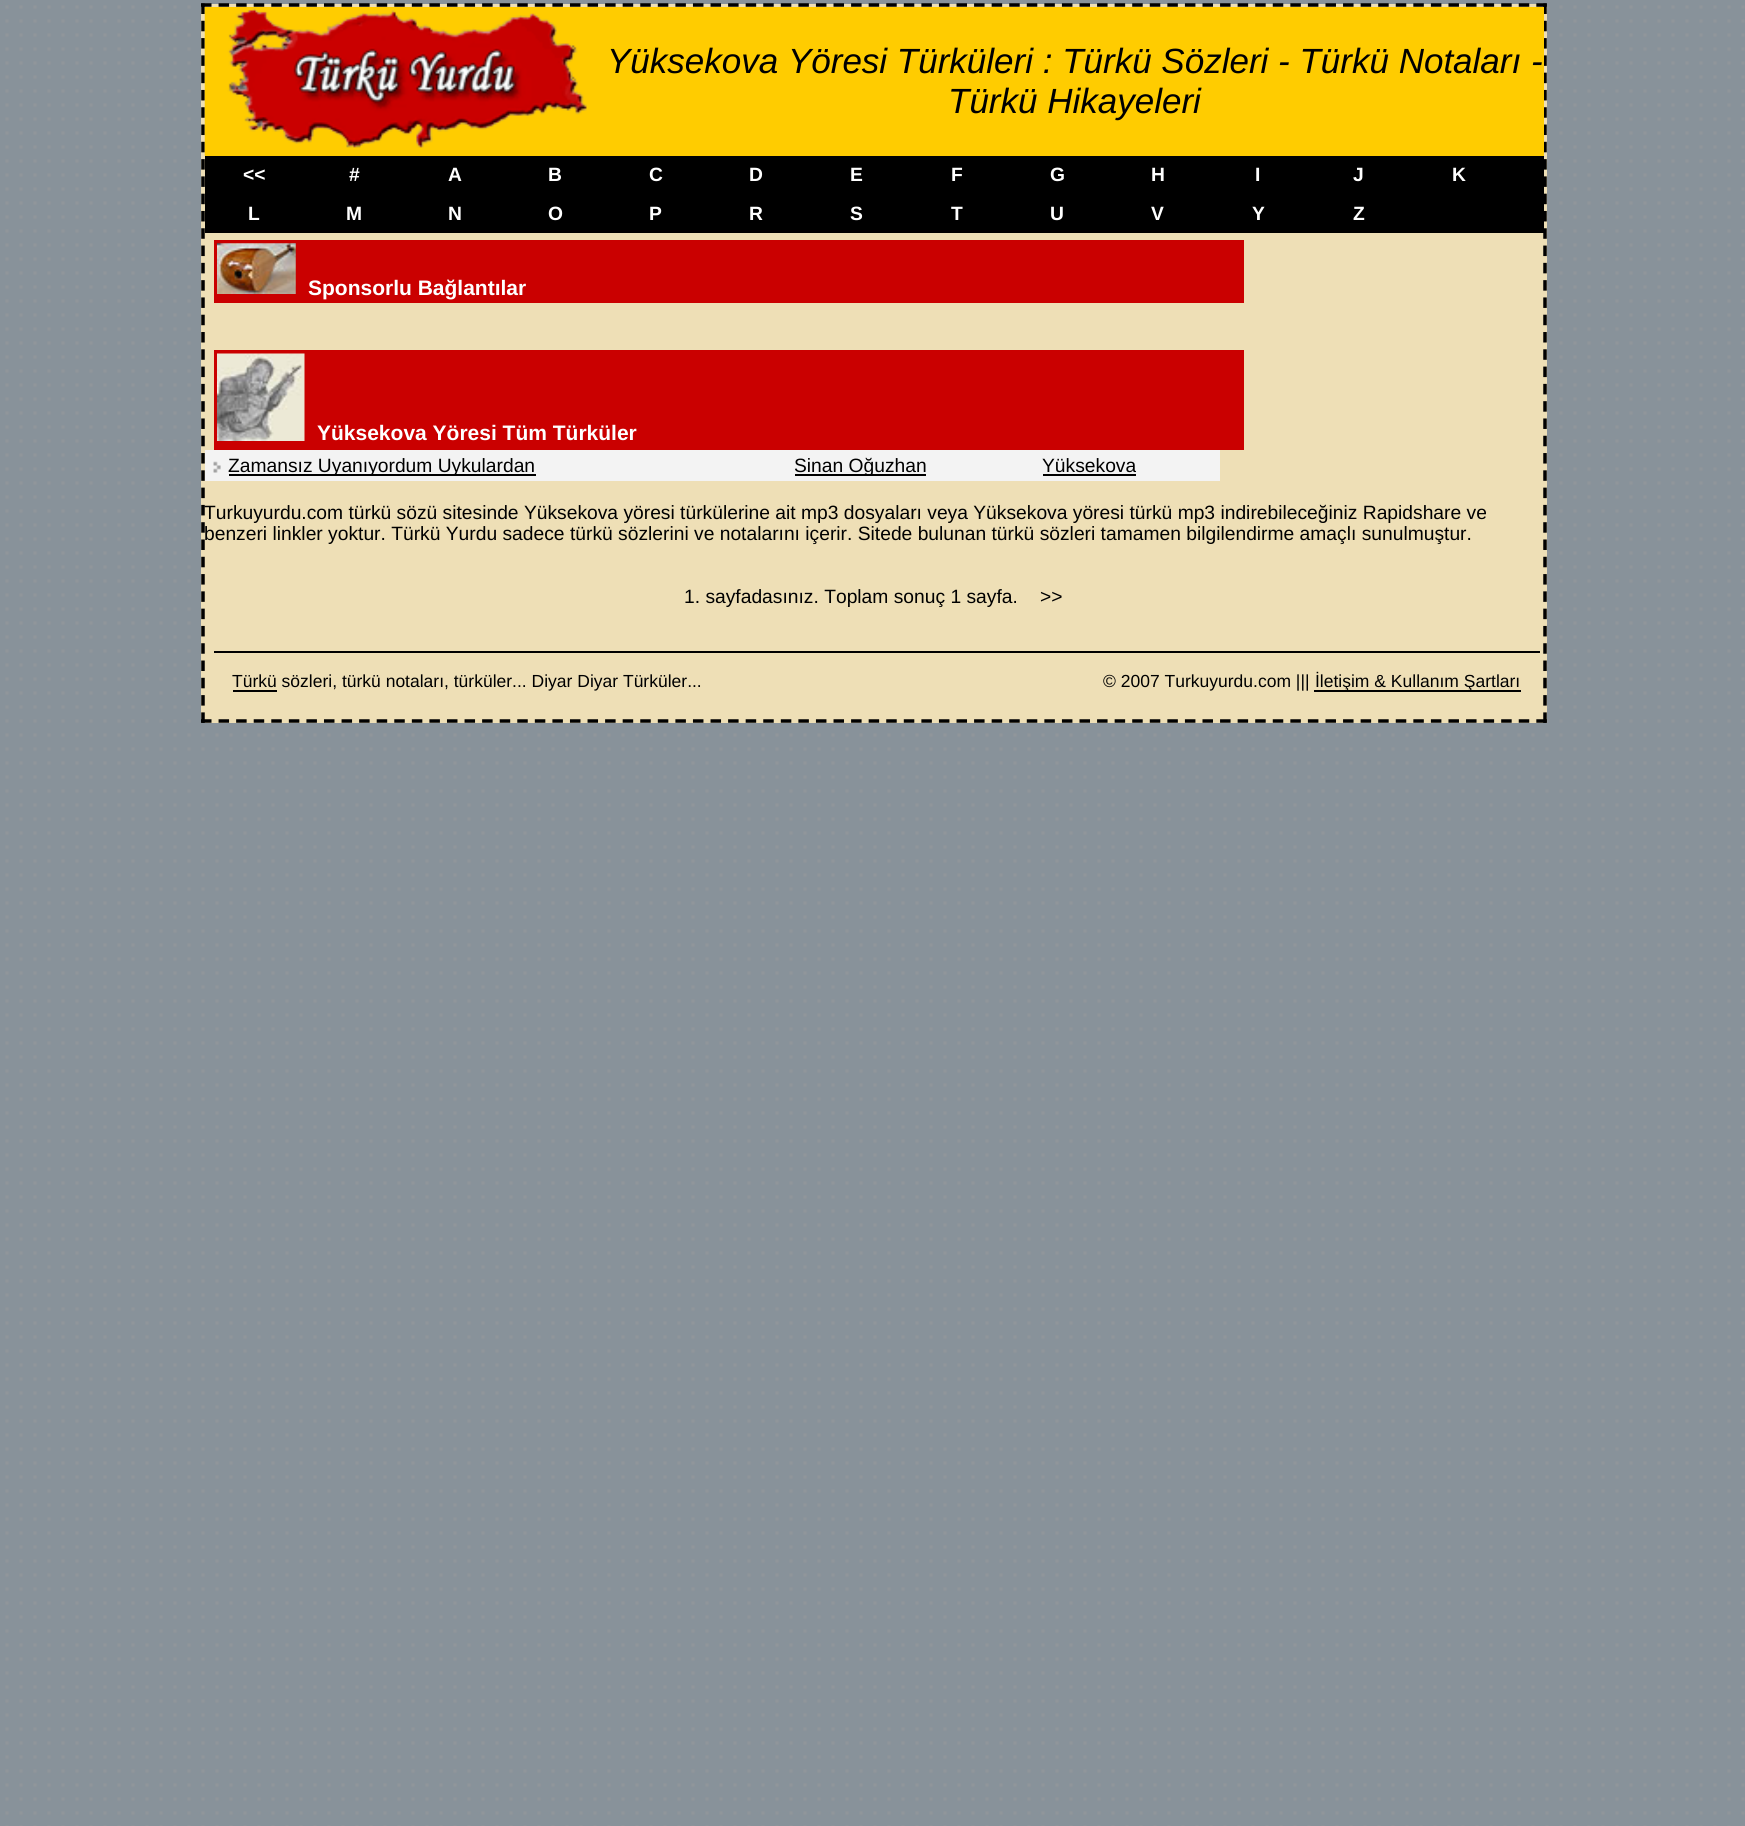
#include <cairo/cairo.h>
#include <math.h>
#include <stddef.h>

static cairo_t *cr;

static void use_color(int r, int g, int b) {
  cairo_set_source_rgb(cr, r / 255.0, g / 255.0, b / 255.0);
}

static void text(double x, double y, const char *s, const char *family, double size, int italic, int bold, int r, int g, int b) {
  cairo_select_font_face(cr, family, italic ? CAIRO_FONT_SLANT_ITALIC : CAIRO_FONT_SLANT_NORMAL,
    bold ? CAIRO_FONT_WEIGHT_BOLD : CAIRO_FONT_WEIGHT_NORMAL);
  cairo_set_font_size(cr, size);
  use_color(r, g, b);
  cairo_move_to(cr, x, y);
  cairo_show_text(cr, s);
}

static void box(double x, double y, double w, double h, int r, int g, int b) {
  use_color(r, g, b);
  cairo_rectangle(cr, x, y, w, h);
  cairo_fill(cr);
}

static void picture(const char *path, double x, double y, double w, double h) {
  cairo_surface_t *image = cairo_image_surface_create_from_png(path);
  cairo_save(cr);
  cairo_set_source_surface(cr, image, x, y);
  cairo_rectangle(cr, x, y, w, h);
  cairo_fill(cr);
  cairo_restore(cr);
  cairo_surface_destroy(image);
}

static void draw(void) {
  use_color(136, 146, 154);
  cairo_paint(cr);
  picture("img_01.png", 5, 5, 1740, 1821);
  box(201, 4, 1346, 719, 238, 223, 182);
  cairo_new_path(cr);
  cairo_move_to(cr, 201, 5);
  cairo_line_to(cr, 1547, 5);
  use_color(0, 0, 0);
  cairo_set_line_width(cr, 3.5);
  cairo_set_dash(cr, (double[]){10.5, 7.07}, 2, 0);
  cairo_stroke(cr);
  cairo_new_path(cr);
  cairo_move_to(cr, 1545, 3.5);
  cairo_line_to(cr, 1545, 723);
  cairo_set_dash(cr, (double[]){10.5, 6.79}, 2, 0);
  cairo_stroke(cr);
  cairo_new_path(cr);
  cairo_move_to(cr, 201, 721);
  cairo_line_to(cr, 1547, 721);
  cairo_set_dash(cr, (double[]){10.5, 7.07}, 2, 0);
  cairo_stroke(cr);
  cairo_new_path(cr);
  cairo_move_to(cr, 203, 3.5);
  cairo_line_to(cr, 203, 723);
  cairo_set_dash(cr, (double[]){10.5, 6.79}, 2, 0);
  cairo_stroke(cr);
  box(205, 7, 1339, 149, 255, 204, 0);
  picture("img_02.png", 204, 7, 383, 149);
  box(205, 156, 1339, 77, 0, 0, 0);
  box(214, 240, 1030, 63, 202, 0, 0);
  picture("img_03.png", 217, 243, 79, 51);
  box(214, 350, 1030, 100, 202, 0, 0);
  picture("img_04.png", 217, 353, 88, 88);
  box(205, 450, 1015, 31, 243, 243, 243);
  picture("img_05.png", 213, 461, 8, 12);
  box(229, 474, 307, 2, 0, 0, 0);
  box(795, 474, 131, 2, 0, 0, 0);
  box(1043, 474, 93, 2, 0, 0, 0);
  box(214, 651, 1326, 2, 0, 0, 0);
  box(233, 690, 44, 2, 0, 0, 0);
  box(1314, 690, 207, 2, 0, 0, 0);
  text(607, 73, "Yüksekova Yöresi Türküleri : Türkü Sözleri - Türkü Notaları -", "Liberation Sans", 35, 1, 0, 0, 0, 0);
  text(948, 113, "Türkü Hikayeleri", "Liberation Sans", 35, 1, 0, 0, 0, 0);
  text(243, 181, "<<", "Liberation Sans", 19.25, 0, 1, 255, 255, 255);
  text(349, 181, "#", "Liberation Sans", 19.25, 0, 1, 255, 255, 255);
  text(448, 181, "A", "Liberation Sans", 19.25, 0, 1, 255, 255, 255);
  text(548, 181, "B", "Liberation Sans", 19.25, 0, 1, 255, 255, 255);
  text(649, 181, "C", "Liberation Sans", 19.25, 0, 1, 255, 255, 255);
  text(749, 181, "D", "Liberation Sans", 19.25, 0, 1, 255, 255, 255);
  text(850, 181, "E", "Liberation Sans", 19.25, 0, 1, 255, 255, 255);
  text(951, 181, "F", "Liberation Sans", 19.25, 0, 1, 255, 255, 255);
  text(1050, 181, "G", "Liberation Sans", 19.25, 0, 1, 255, 255, 255);
  text(1151, 181, "H", "Liberation Sans", 19.25, 0, 1, 255, 255, 255);
  text(1255, 181, "I", "Liberation Sans", 19.25, 0, 1, 255, 255, 255);
  text(1353, 181, "J", "Liberation Sans", 19.25, 0, 1, 255, 255, 255);
  text(1452, 181, "K", "Liberation Sans", 19.25, 0, 1, 255, 255, 255);
  text(248, 220, "L", "Liberation Sans", 19.25, 0, 1, 255, 255, 255);
  text(346, 220, "M", "Liberation Sans", 19.25, 0, 1, 255, 255, 255);
  text(448, 220, "N", "Liberation Sans", 19.25, 0, 1, 255, 255, 255);
  text(548, 220, "O", "Liberation Sans", 19.25, 0, 1, 255, 255, 255);
  text(649, 220, "P", "Liberation Sans", 19.25, 0, 1, 255, 255, 255);
  text(749, 220, "R", "Liberation Sans", 19.25, 0, 1, 255, 255, 255);
  text(850, 220, "S", "Liberation Sans", 19.25, 0, 1, 255, 255, 255);
  text(951, 220, "T", "Liberation Sans", 19.25, 0, 1, 255, 255, 255);
  text(1050, 220, "U", "Liberation Sans", 19.25, 0, 1, 255, 255, 255);
  text(1151, 220, "V", "Liberation Sans", 19.25, 0, 1, 255, 255, 255);
  text(1252, 220, "Y", "Liberation Sans", 19.25, 0, 1, 255, 255, 255);
  text(1353, 220, "Z", "Liberation Sans", 19.25, 0, 1, 255, 255, 255);
  text(308, 295, "Sponsorlu Bağlantılar", "Liberation Sans", 21, 0, 1, 255, 255, 255);
  text(317, 440, "Yüksekova Yöresi Tüm Türküler", "Liberation Sans", 21, 0, 1, 255, 255, 255);
  text(228, 472, "Zamansız Uyanıyordum Uykulardan", "Liberation Sans", 19.25, 0, 0, 0, 0, 0);
  text(794, 472, "Sinan Oğuzhan", "Liberation Sans", 19.25, 0, 0, 0, 0, 0);
  text(1042, 472, "Yüksekova", "Liberation Sans", 19.25, 0, 0, 0, 0, 0);
  text(204, 519, "Turkuyurdu.com türkü sözü sitesinde Yüksekova yöresi türkülerine ait mp3 dosyaları veya Yüksekova yöresi türkü mp3 indirebileceğiniz Rapidshare ve", "Liberation Sans", 19.25, 0, 0, 0, 0, 0);
  text(204, 540, "benzeri linkler yoktur. Türkü Yurdu sadece türkü sözlerini ve notalarını içerir. Sitede bulunan türkü sözleri tamamen bilgilendirme amaçlı sunulmuştur.", "Liberation Sans", 19.25, 0, 0, 0, 0, 0);
  text(684, 603, "1. sayfadasınız. Toplam sonuç 1 sayfa.", "Liberation Sans", 19.25, 0, 0, 0, 0, 0);
  text(1040, 603, ">>", "Liberation Sans", 19.25, 0, 0, 0, 0, 0);
  text(232, 687, "Türkü sözleri, türkü notaları, türküler... Diyar Diyar Türküler...", "Liberation Sans", 17.5, 0, 0, 0, 0, 0);
  text(1103, 687, "© 2007 Turkuyurdu.com |||", "Liberation Sans", 17.5, 0, 0, 0, 0, 0);
  text(1315, 687, "İletişim & Kullanım Şartları", "Liberation Sans", 17.5, 0, 0, 0, 0, 0);
}

int main(void) {
  cairo_surface_t *surface = cairo_image_surface_create(CAIRO_FORMAT_RGB24, 1745, 1826);
  cr = cairo_create(surface);
  cairo_font_options_t *options = cairo_font_options_create();
  cairo_font_options_set_hint_metrics(options, CAIRO_HINT_METRICS_OFF);
  cairo_font_options_set_hint_style(options, CAIRO_HINT_STYLE_NONE);
  cairo_set_font_options(cr, options);
  cairo_set_miter_limit(cr, 4);
  draw();
  cairo_surface_write_to_png(surface, "out.png");
  cairo_font_options_destroy(options);
  cairo_destroy(cr);
  cairo_surface_destroy(surface);
  return 0;
}
